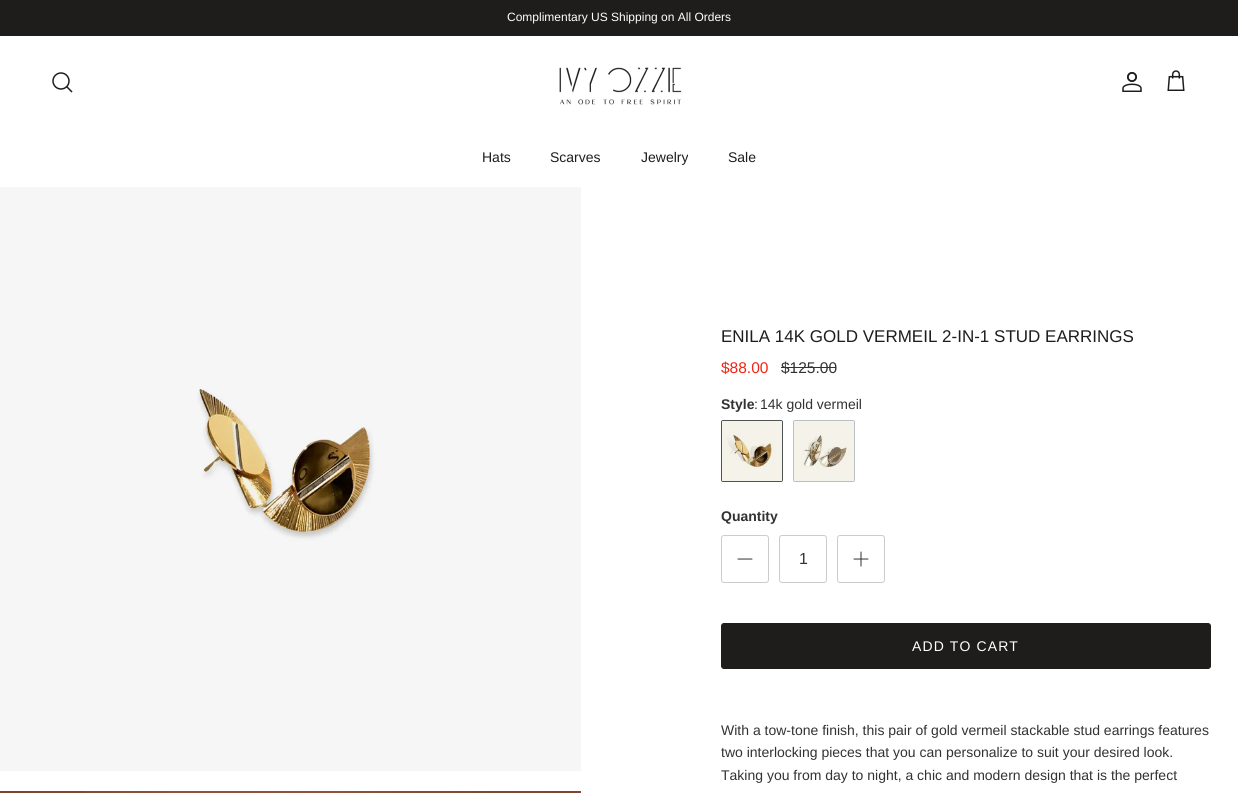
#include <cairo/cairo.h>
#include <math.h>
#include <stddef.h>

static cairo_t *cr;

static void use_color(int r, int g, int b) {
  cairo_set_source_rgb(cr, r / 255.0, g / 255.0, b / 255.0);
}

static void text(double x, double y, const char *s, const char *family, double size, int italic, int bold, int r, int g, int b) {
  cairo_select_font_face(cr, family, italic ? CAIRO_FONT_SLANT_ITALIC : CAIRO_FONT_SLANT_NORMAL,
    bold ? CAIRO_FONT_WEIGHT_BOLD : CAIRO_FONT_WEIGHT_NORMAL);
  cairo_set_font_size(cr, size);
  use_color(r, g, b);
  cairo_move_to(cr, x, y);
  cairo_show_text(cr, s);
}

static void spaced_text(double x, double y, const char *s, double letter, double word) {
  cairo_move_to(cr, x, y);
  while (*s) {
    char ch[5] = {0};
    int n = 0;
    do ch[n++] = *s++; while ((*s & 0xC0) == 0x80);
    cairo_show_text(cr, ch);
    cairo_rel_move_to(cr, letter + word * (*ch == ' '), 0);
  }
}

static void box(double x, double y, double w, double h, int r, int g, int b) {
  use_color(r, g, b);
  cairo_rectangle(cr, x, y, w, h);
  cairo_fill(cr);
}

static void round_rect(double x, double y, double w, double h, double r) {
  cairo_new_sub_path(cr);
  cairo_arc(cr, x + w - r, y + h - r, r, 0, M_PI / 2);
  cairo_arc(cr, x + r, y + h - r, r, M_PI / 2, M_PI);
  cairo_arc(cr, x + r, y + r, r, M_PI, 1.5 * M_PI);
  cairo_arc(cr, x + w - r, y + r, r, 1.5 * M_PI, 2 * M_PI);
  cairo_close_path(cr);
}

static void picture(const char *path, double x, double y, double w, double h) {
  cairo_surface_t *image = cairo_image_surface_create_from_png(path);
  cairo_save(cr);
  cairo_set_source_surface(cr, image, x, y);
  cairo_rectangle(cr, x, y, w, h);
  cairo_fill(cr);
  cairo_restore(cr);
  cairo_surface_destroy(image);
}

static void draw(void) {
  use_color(255, 255, 255);
  cairo_paint(cr);
  box(0, 0, 1238, 36, 30, 29, 28);
  cairo_arc(cr, 61, 81, 8, 0, 2 * M_PI);
  cairo_set_line_width(cr, 1.5);
  cairo_stroke(cr);
  cairo_new_path(cr);
  cairo_move_to(cr, 67, 87);
  cairo_line_to(cr, 71.5, 91.5);
  cairo_set_line_cap(cr, CAIRO_LINE_CAP_SQUARE);
  cairo_stroke(cr);
  picture("img_01.png", 559, 67, 123, 38);
  picture("img_02.png", 1122, 72, 20, 20);
  picture("img_03.png", 1167, 70, 18, 21);
  picture("img_04.png", 0, 187, 581, 584);
  picture("img_05.png", 0, 791, 581, 2);
  box(781, 367, 55, 1, 50, 50, 50);
  round_rect(721.5, 420.5, 61, 61, 1.5);
  use_color(79, 83, 84);
  cairo_set_line_width(cr, 1);
  cairo_set_line_cap(cr, CAIRO_LINE_CAP_BUTT);
  cairo_stroke(cr);
  picture("img_06.png", 722, 421, 60, 60);
  round_rect(793.5, 420.5, 61, 61, 1.5);
  use_color(186, 191, 195);
  cairo_stroke(cr);
  picture("img_07.png", 794, 421, 60, 60);
  round_rect(721.5, 535.5, 47, 47, 2.5);
  use_color(204, 204, 204);
  cairo_stroke(cr);
  cairo_new_path(cr);
  cairo_move_to(cr, 738, 559);
  cairo_line_to(cr, 752, 559);
  use_color(50, 50, 50);
  cairo_set_line_cap(cr, CAIRO_LINE_CAP_ROUND);
  cairo_set_line_join(cr, CAIRO_LINE_JOIN_ROUND);
  cairo_stroke(cr);
  round_rect(779.5, 535.5, 47, 47, 2.5);
  use_color(204, 204, 204);
  cairo_set_line_cap(cr, CAIRO_LINE_CAP_BUTT);
  cairo_set_line_join(cr, CAIRO_LINE_JOIN_MITER);
  cairo_stroke(cr);
  round_rect(837.5, 535.5, 47, 47, 2.5);
  cairo_stroke(cr);
  cairo_new_path(cr);
  cairo_move_to(cr, 861, 552);
  cairo_line_to(cr, 861, 566);
  cairo_move_to(cr, 854, 559);
  cairo_line_to(cr, 868, 559);
  use_color(50, 50, 50);
  cairo_set_line_cap(cr, CAIRO_LINE_CAP_ROUND);
  cairo_set_line_join(cr, CAIRO_LINE_JOIN_ROUND);
  cairo_stroke(cr);
  use_color(30, 29, 28);
  round_rect(721.5, 623.5, 489, 45, 2.5);
  cairo_fill_preserve(cr);
  cairo_set_line_cap(cr, CAIRO_LINE_CAP_BUTT);
  cairo_set_line_join(cr, CAIRO_LINE_JOIN_MITER);
  cairo_stroke(cr);
  text(507, 21, "Complimentary US Shipping on All Orders", "Liberation Sans", 12, 0, 0, 255, 255, 255);
  text(482, 162, "Hats", "Liberation Sans", 14, 0, 0, 30, 29, 28);
  text(550, 162, "Scarves", "Liberation Sans", 14, 0, 0, 30, 29, 28);
  text(641, 162, "Jewelry", "Liberation Sans", 14, 0, 0, 30, 29, 28);
  text(728, 162, "Sale", "Liberation Sans", 14, 0, 0, 30, 29, 28);
  text(721, 342, "ENILA 14K GOLD VERMEIL 2-IN-1 STUD EARRINGS", "Liberation Sans", 17, 0, 0, 30, 29, 28);
  text(721, 373, "$88.00", "Liberation Sans", 15.5, 0, 0, 241, 35, 17);
  text(781, 373, "$125.00", "Liberation Sans", 15.5, 0, 0, 50, 50, 50);
  text(721, 409, "Style", "Liberation Sans", 14, 0, 1, 50, 50, 50);
  text(754, 409, ":", "Liberation Sans", 14, 0, 0, 50, 50, 50);
  text(760, 409, "14k gold vermeil", "Liberation Sans", 14, 0, 0, 50, 50, 50);
  text(721, 521, "Quantity", "Liberation Sans", 14, 0, 1, 50, 50, 50);
  text(799, 564, "1", "Liberation Sans", 16, 0, 0, 50, 50, 50);
  cairo_set_font_size(cr, 14);
  use_color(255, 255, 255);
  spaced_text(912, 651, "ADD TO CART", 1.1, 0);
  text(721, 735, "With a tow-tone finish, this pair of gold vermeil stackable stud earrings features", "Liberation Sans", 14, 0, 0, 50, 50, 50);
  text(721, 757, "two interlocking pieces that you can personalize to suit your desired look.", "Liberation Sans", 14, 0, 0, 50, 50, 50);
  text(721, 780, "Taking you from day to night, a chic and modern design that is the perfect", "Liberation Sans", 14, 0, 0, 50, 50, 50);
}

int main(void) {
  cairo_surface_t *surface = cairo_image_surface_create(CAIRO_FORMAT_RGB24, 1238, 793);
  cr = cairo_create(surface);
  cairo_font_options_t *options = cairo_font_options_create();
  cairo_font_options_set_hint_metrics(options, CAIRO_HINT_METRICS_OFF);
  cairo_font_options_set_hint_style(options, CAIRO_HINT_STYLE_NONE);
  cairo_set_font_options(cr, options);
  cairo_set_miter_limit(cr, 4);
  draw();
  cairo_surface_write_to_png(surface, "out.png");
  cairo_font_options_destroy(options);
  cairo_destroy(cr);
  cairo_surface_destroy(surface);
  return 0;
}
